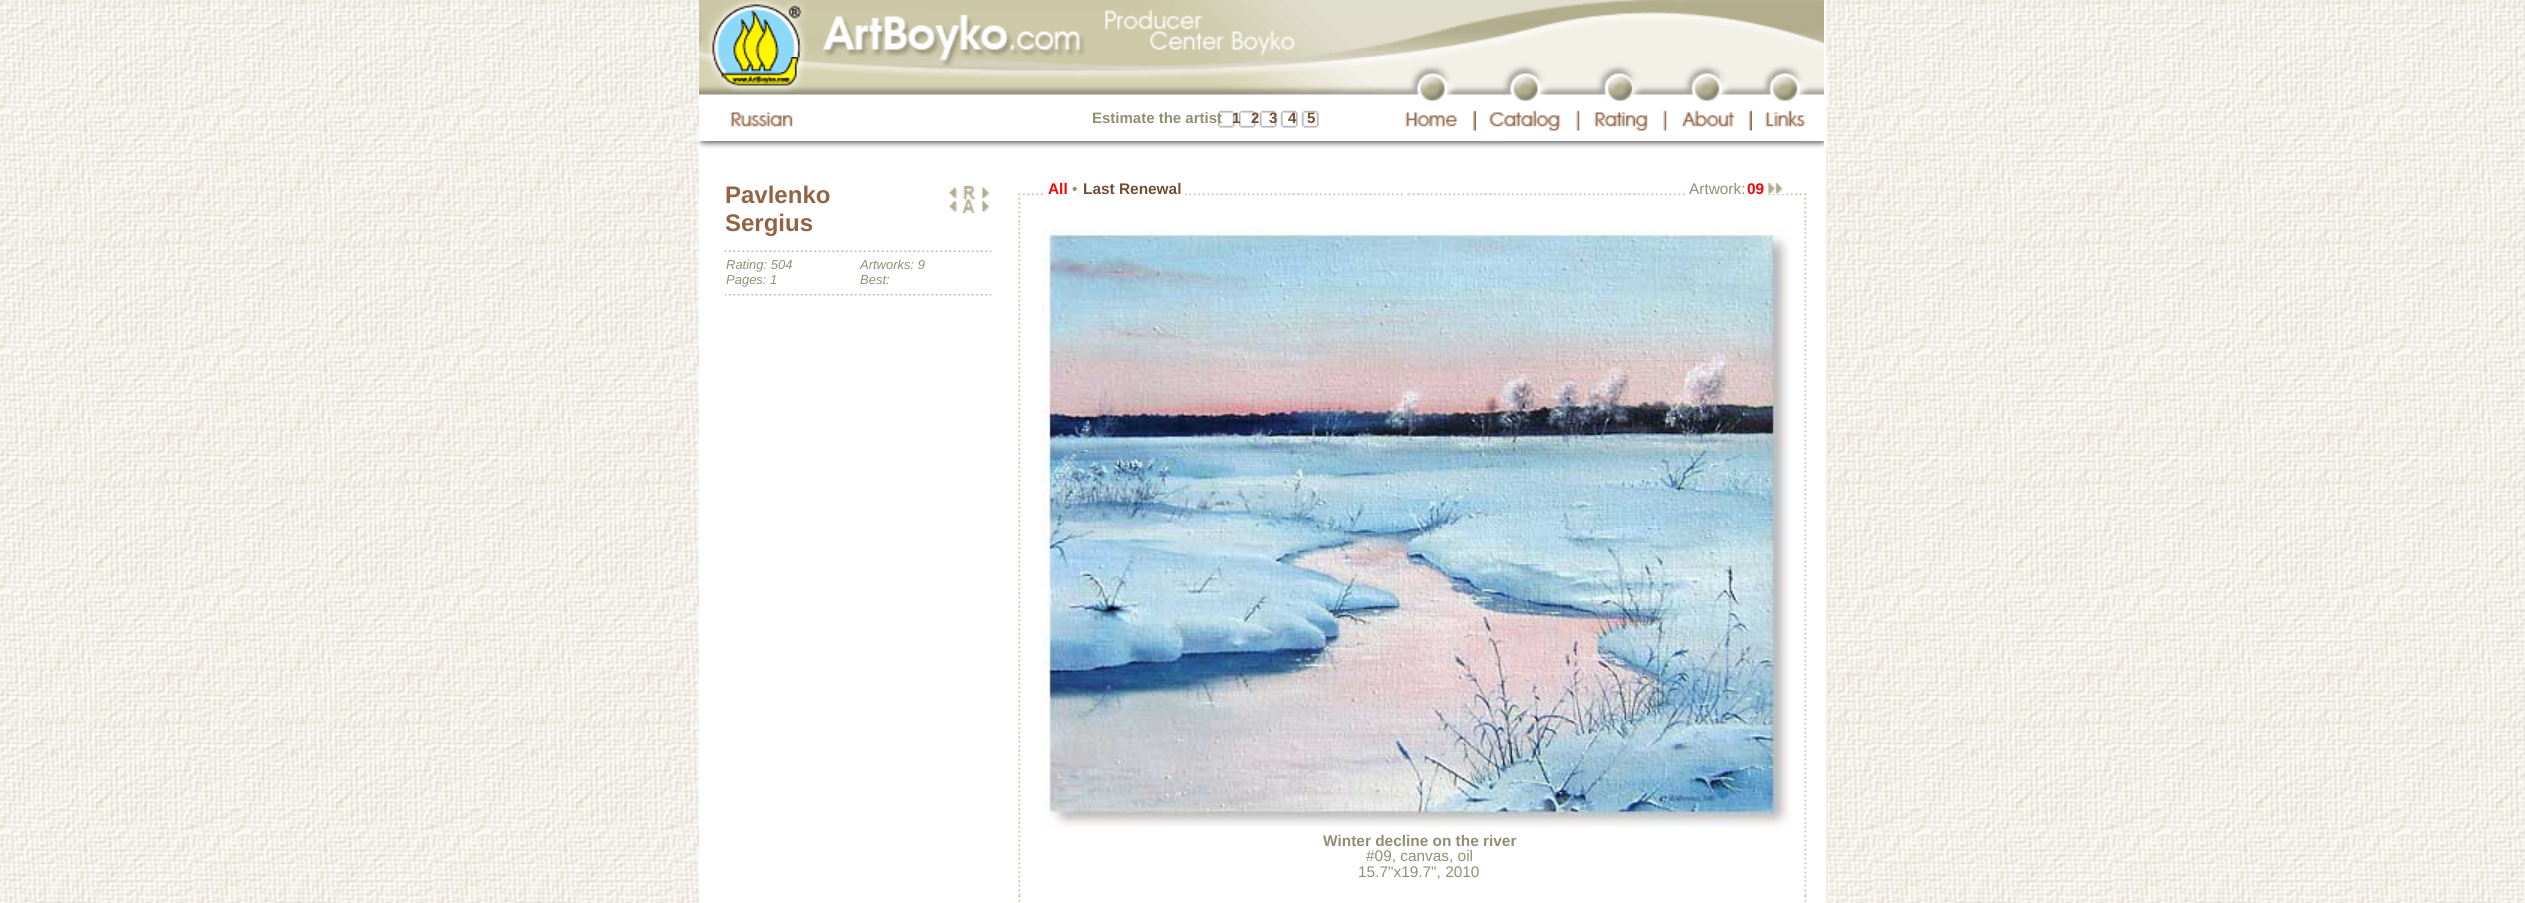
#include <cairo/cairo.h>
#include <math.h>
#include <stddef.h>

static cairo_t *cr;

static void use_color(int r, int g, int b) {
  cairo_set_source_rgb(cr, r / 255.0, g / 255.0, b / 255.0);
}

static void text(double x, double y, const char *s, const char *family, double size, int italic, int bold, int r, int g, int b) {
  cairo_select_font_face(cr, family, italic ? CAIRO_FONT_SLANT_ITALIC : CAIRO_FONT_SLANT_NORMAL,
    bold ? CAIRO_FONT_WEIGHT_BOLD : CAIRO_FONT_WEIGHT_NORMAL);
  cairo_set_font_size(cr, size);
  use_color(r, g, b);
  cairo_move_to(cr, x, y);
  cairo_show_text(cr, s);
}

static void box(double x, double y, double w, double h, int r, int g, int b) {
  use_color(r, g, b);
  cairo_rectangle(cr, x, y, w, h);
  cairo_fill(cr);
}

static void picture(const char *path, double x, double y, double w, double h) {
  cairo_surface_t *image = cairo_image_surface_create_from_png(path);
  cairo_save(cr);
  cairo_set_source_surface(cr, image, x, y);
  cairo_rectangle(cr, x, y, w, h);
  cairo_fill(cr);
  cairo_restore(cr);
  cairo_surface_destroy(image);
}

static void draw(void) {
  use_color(255, 255, 255);
  cairo_paint(cr);
  picture("img_01.png", 0, 0, 2525, 903);
  box(699, 0, 1128, 903, 255, 255, 255);
  picture("img_02.png", 699, 0, 1125, 57);
  box(1826, 0, 2, 57, 240, 238, 229);
  picture("img_03.png", 699, 57, 687, 38);
  picture("img_04.png", 1386, 57, 438, 18);
  picture("img_05.png", 1386, 75, 33, 20);
  picture("img_06.png", 1419, 75, 27, 26);
  picture("img_07.png", 1446, 75, 66, 20);
  picture("img_08.png", 1512, 75, 27, 26);
  picture("img_09.png", 1539, 75, 68, 20);
  picture("img_10.png", 1606, 75, 28, 26);
  picture("img_11.png", 1633, 75, 61, 20);
  picture("img_12.png", 1693, 75, 28, 26);
  picture("img_13.png", 1720, 75, 52, 20);
  picture("img_14.png", 1771, 75, 28, 26);
  picture("img_15.png", 1798, 75, 26, 20);
  picture("img_16.png", 730, 112, 63, 15);
  picture("img_17.png", 1405, 112, 53, 15);
  picture("img_18.png", 1473, 110, 3, 21);
  picture("img_19.png", 1489, 110, 72, 21);
  picture("img_20.png", 1576, 110, 4, 21);
  picture("img_21.png", 1579, 110, 69, 21);
  picture("img_20.png", 1663, 110, 4, 21);
  picture("img_22.png", 1666, 110, 69, 21);
  picture("img_23.png", 1749, 110, 3, 21);
  picture("img_24.png", 1765, 110, 40, 17);
  picture("img_25.png", 1217, 110, 102, 18);
  picture("img_26.png", 699, 141, 1125, 8);
  box(1826, 149, 2, 30, 240, 238, 229);
  picture("img_27.png", 949, 187, 9, 11);
  picture("img_28.png", 963, 186, 13, 14);
  picture("img_29.png", 981, 187, 9, 11);
  picture("img_30.png", 949, 201, 9, 11);
  picture("img_31.png", 962, 199, 14, 14);
  picture("img_32.png", 981, 201, 9, 11);
  picture("img_33.png", 724, 250, 268, 2);
  picture("img_34.png", 724, 294, 268, 2);
  picture("img_35.png", 1078, 193, 325, 3);
  box(1081, 193, 2, 4, 255, 255, 255);
  box(1083, 193, 99, 3, 255, 255, 255);
  box(1182, 193, 3, 4, 255, 255, 255);
  picture("img_36.png", 1407, 193, 2, 3);
  picture("img_37.png", 1409, 193, 387, 3);
  box(1687, 193, 57, 3, 255, 255, 255);
  box(1745, 185, 3, 10, 255, 255, 255);
  box(1750, 193, 14, 3, 255, 255, 255);
  box(1764, 185, 2, 10, 255, 255, 255);
  box(1768, 193, 16, 1, 255, 255, 255);
  picture("img_38.png", 1767, 183, 16, 11);
  picture("img_39.png", 1018, 193, 25, 30);
  picture("img_40.png", 1795, 193, 12, 30);
  picture("img_41.png", 1018, 223, 3, 673);
  picture("img_42.png", 1042, 228, 748, 601);
  picture("img_41.png", 1804, 223, 3, 673);
  picture("img_43.png", 1018, 895, 3, 7);
  picture("img_43.png", 1804, 895, 3, 7);
  box(1826, 180, 2, 723, 240, 238, 229);
  text(1092, 123, "Estimate the artist", "Liberation Sans", 15, 0, 1, 146, 142, 117);
  text(1232, 123, "1", "Liberation Sans", 15, 0, 1, 114, 77, 52);
  text(1251, 123, "2", "Liberation Sans", 15, 0, 1, 114, 77, 52);
  text(1269, 123, "3", "Liberation Sans", 15, 0, 1, 114, 77, 52);
  text(1288, 123, "4", "Liberation Sans", 15, 0, 1, 114, 77, 52);
  text(1307, 123, "5", "Liberation Sans", 15, 0, 1, 114, 77, 52);
  text(725, 203, "Pavlenko", "Liberation Sans", 24, 0, 1, 145, 100, 69);
  text(725, 231, "Sergius", "Liberation Sans", 24, 0, 1, 145, 100, 69);
  text(726, 269, "Rating: 504", "Liberation Sans", 13, 1, 0, 146, 142, 117);
  text(726, 284, "Pages: 1", "Liberation Sans", 13, 1, 0, 146, 142, 117);
  text(860, 269, "Artworks: 9", "Liberation Sans", 13, 1, 0, 146, 142, 117);
  text(860, 284, "Best:", "Liberation Sans", 13, 1, 0, 146, 142, 117);
  text(1048, 194, "All", "Liberation Sans", 15.4, 0, 1, 255, 0, 0);
  text(1072, 194, "•", "Liberation Sans", 15.4, 0, 0, 146, 142, 117);
  text(1083, 194, "Last Renewal", "Liberation Sans", 15.4, 0, 1, 114, 77, 52);
  text(1689, 194, "Artwork:", "Liberation Sans", 15.4, 0, 0, 146, 142, 117);
  text(1747, 194, "09", "Liberation Sans", 15.4, 0, 1, 255, 0, 0);
  text(1323, 846, "Winter decline on the river", "Liberation Sans", 15.4, 0, 1, 146, 142, 117);
  text(1366, 861, "#09, canvas, oil", "Liberation Sans", 15.4, 0, 0, 146, 142, 117);
  text(1358, 877, "15.7\"x19.7\", 2010", "Liberation Sans", 15.4, 0, 0, 146, 142, 117);
}

int main(void) {
  cairo_surface_t *surface = cairo_image_surface_create(CAIRO_FORMAT_RGB24, 2525, 903);
  cr = cairo_create(surface);
  cairo_font_options_t *options = cairo_font_options_create();
  cairo_font_options_set_hint_metrics(options, CAIRO_HINT_METRICS_OFF);
  cairo_font_options_set_hint_style(options, CAIRO_HINT_STYLE_NONE);
  cairo_set_font_options(cr, options);
  cairo_set_miter_limit(cr, 4);
  draw();
  cairo_surface_write_to_png(surface, "out.png");
  cairo_font_options_destroy(options);
  cairo_destroy(cr);
  cairo_surface_destroy(surface);
  return 0;
}
